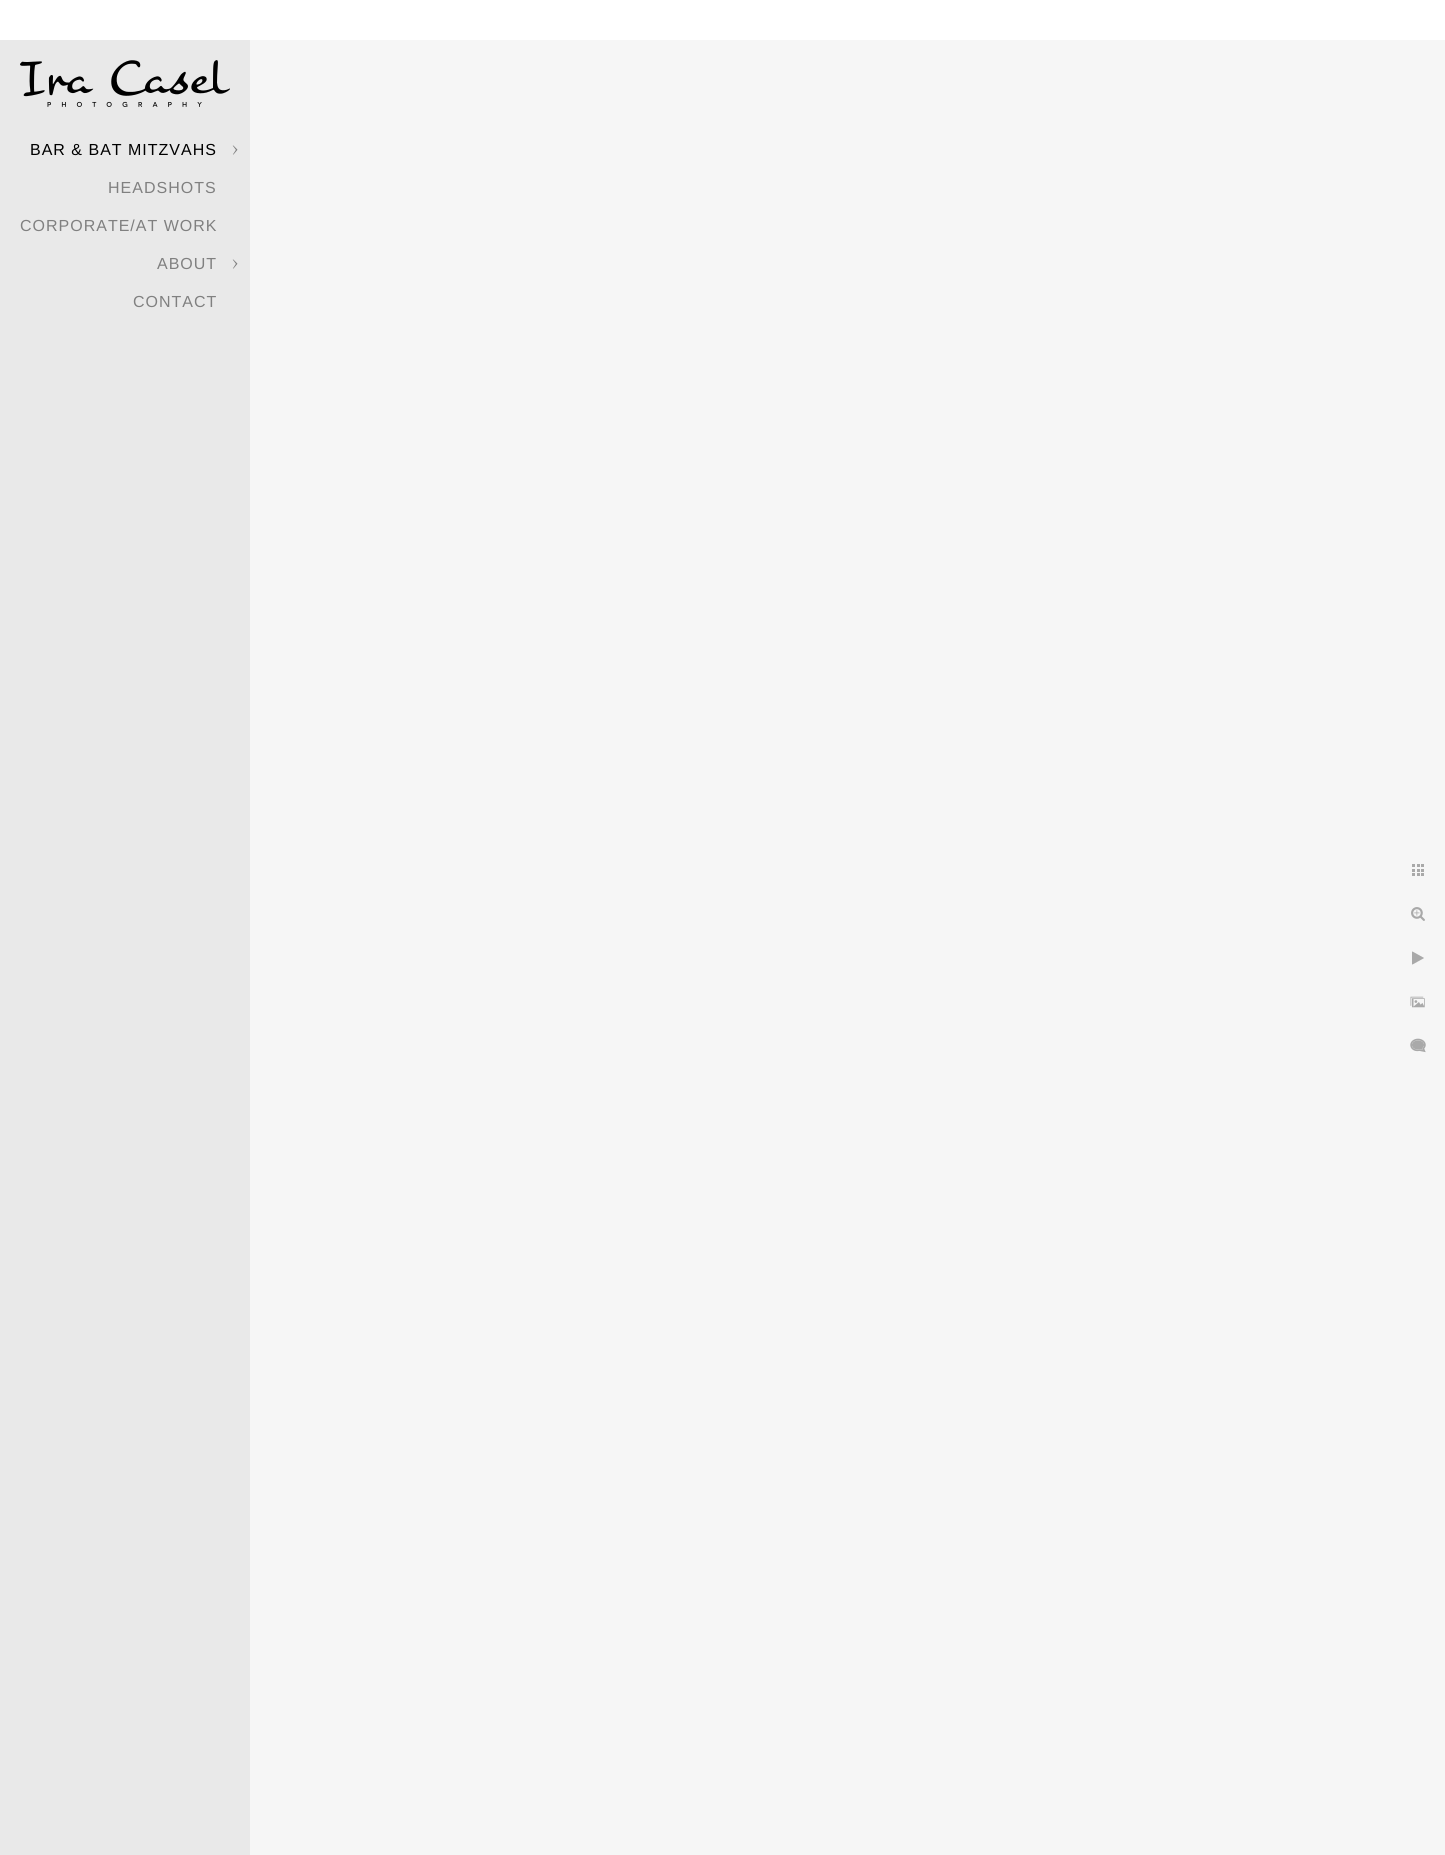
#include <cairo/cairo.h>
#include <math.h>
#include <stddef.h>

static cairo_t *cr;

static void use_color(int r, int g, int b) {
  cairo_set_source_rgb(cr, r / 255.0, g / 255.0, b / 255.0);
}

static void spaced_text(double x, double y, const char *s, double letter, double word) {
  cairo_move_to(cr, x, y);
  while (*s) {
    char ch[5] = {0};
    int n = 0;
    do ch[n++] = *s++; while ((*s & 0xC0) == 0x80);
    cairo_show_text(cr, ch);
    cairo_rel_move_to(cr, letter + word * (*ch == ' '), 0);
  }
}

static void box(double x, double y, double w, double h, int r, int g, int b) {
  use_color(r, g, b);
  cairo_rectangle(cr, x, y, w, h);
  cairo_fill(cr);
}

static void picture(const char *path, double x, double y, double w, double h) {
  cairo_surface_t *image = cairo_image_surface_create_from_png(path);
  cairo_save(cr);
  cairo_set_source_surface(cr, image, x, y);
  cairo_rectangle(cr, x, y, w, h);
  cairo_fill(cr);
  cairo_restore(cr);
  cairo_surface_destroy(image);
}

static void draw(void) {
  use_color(246, 246, 246);
  cairo_paint(cr);
  box(0, 0, 1445, 40, 255, 255, 255);
  box(0, 40, 250, 1815, 233, 233, 233);
  picture("img_01.png", 20, 60, 210, 47);
  picture("img_02.png", 232, 145, 6, 10);
  picture("img_02.png", 232, 259, 6, 10);
  picture("img_03.png", 1412, 864, 12, 12);
  picture("img_04.png", 1411, 907, 14, 14);
  picture("img_05.png", 1412, 951, 12, 14);
  picture("img_06.png", 1410, 996, 15, 12);
  picture("img_07.png", 1410, 1038, 16, 15);
  cairo_select_font_face(cr, "Liberation Sans", CAIRO_FONT_SLANT_NORMAL, CAIRO_FONT_WEIGHT_NORMAL);
  cairo_set_font_size(cr, 16);
  use_color(0, 0, 0);
  spaced_text(30, 155, "BAR & BAT MITZVAHS", 1, 0);
  use_color(128, 128, 128);
  spaced_text(108, 193, "HEADSHOTS", 1, 0);
  spaced_text(20, 231, "CORPORATE/AT WORK", 1, 0);
  spaced_text(157, 269, "ABOUT", 1, 0);
  spaced_text(133, 307, "CONTACT", 1, 0);
}

int main(void) {
  cairo_surface_t *surface = cairo_image_surface_create(CAIRO_FORMAT_RGB24, 1445, 1855);
  cr = cairo_create(surface);
  cairo_font_options_t *options = cairo_font_options_create();
  cairo_font_options_set_hint_metrics(options, CAIRO_HINT_METRICS_OFF);
  cairo_font_options_set_hint_style(options, CAIRO_HINT_STYLE_NONE);
  cairo_set_font_options(cr, options);
  cairo_set_miter_limit(cr, 4);
  draw();
  cairo_surface_write_to_png(surface, "out.png");
  cairo_font_options_destroy(options);
  cairo_destroy(cr);
  cairo_surface_destroy(surface);
  return 0;
}
